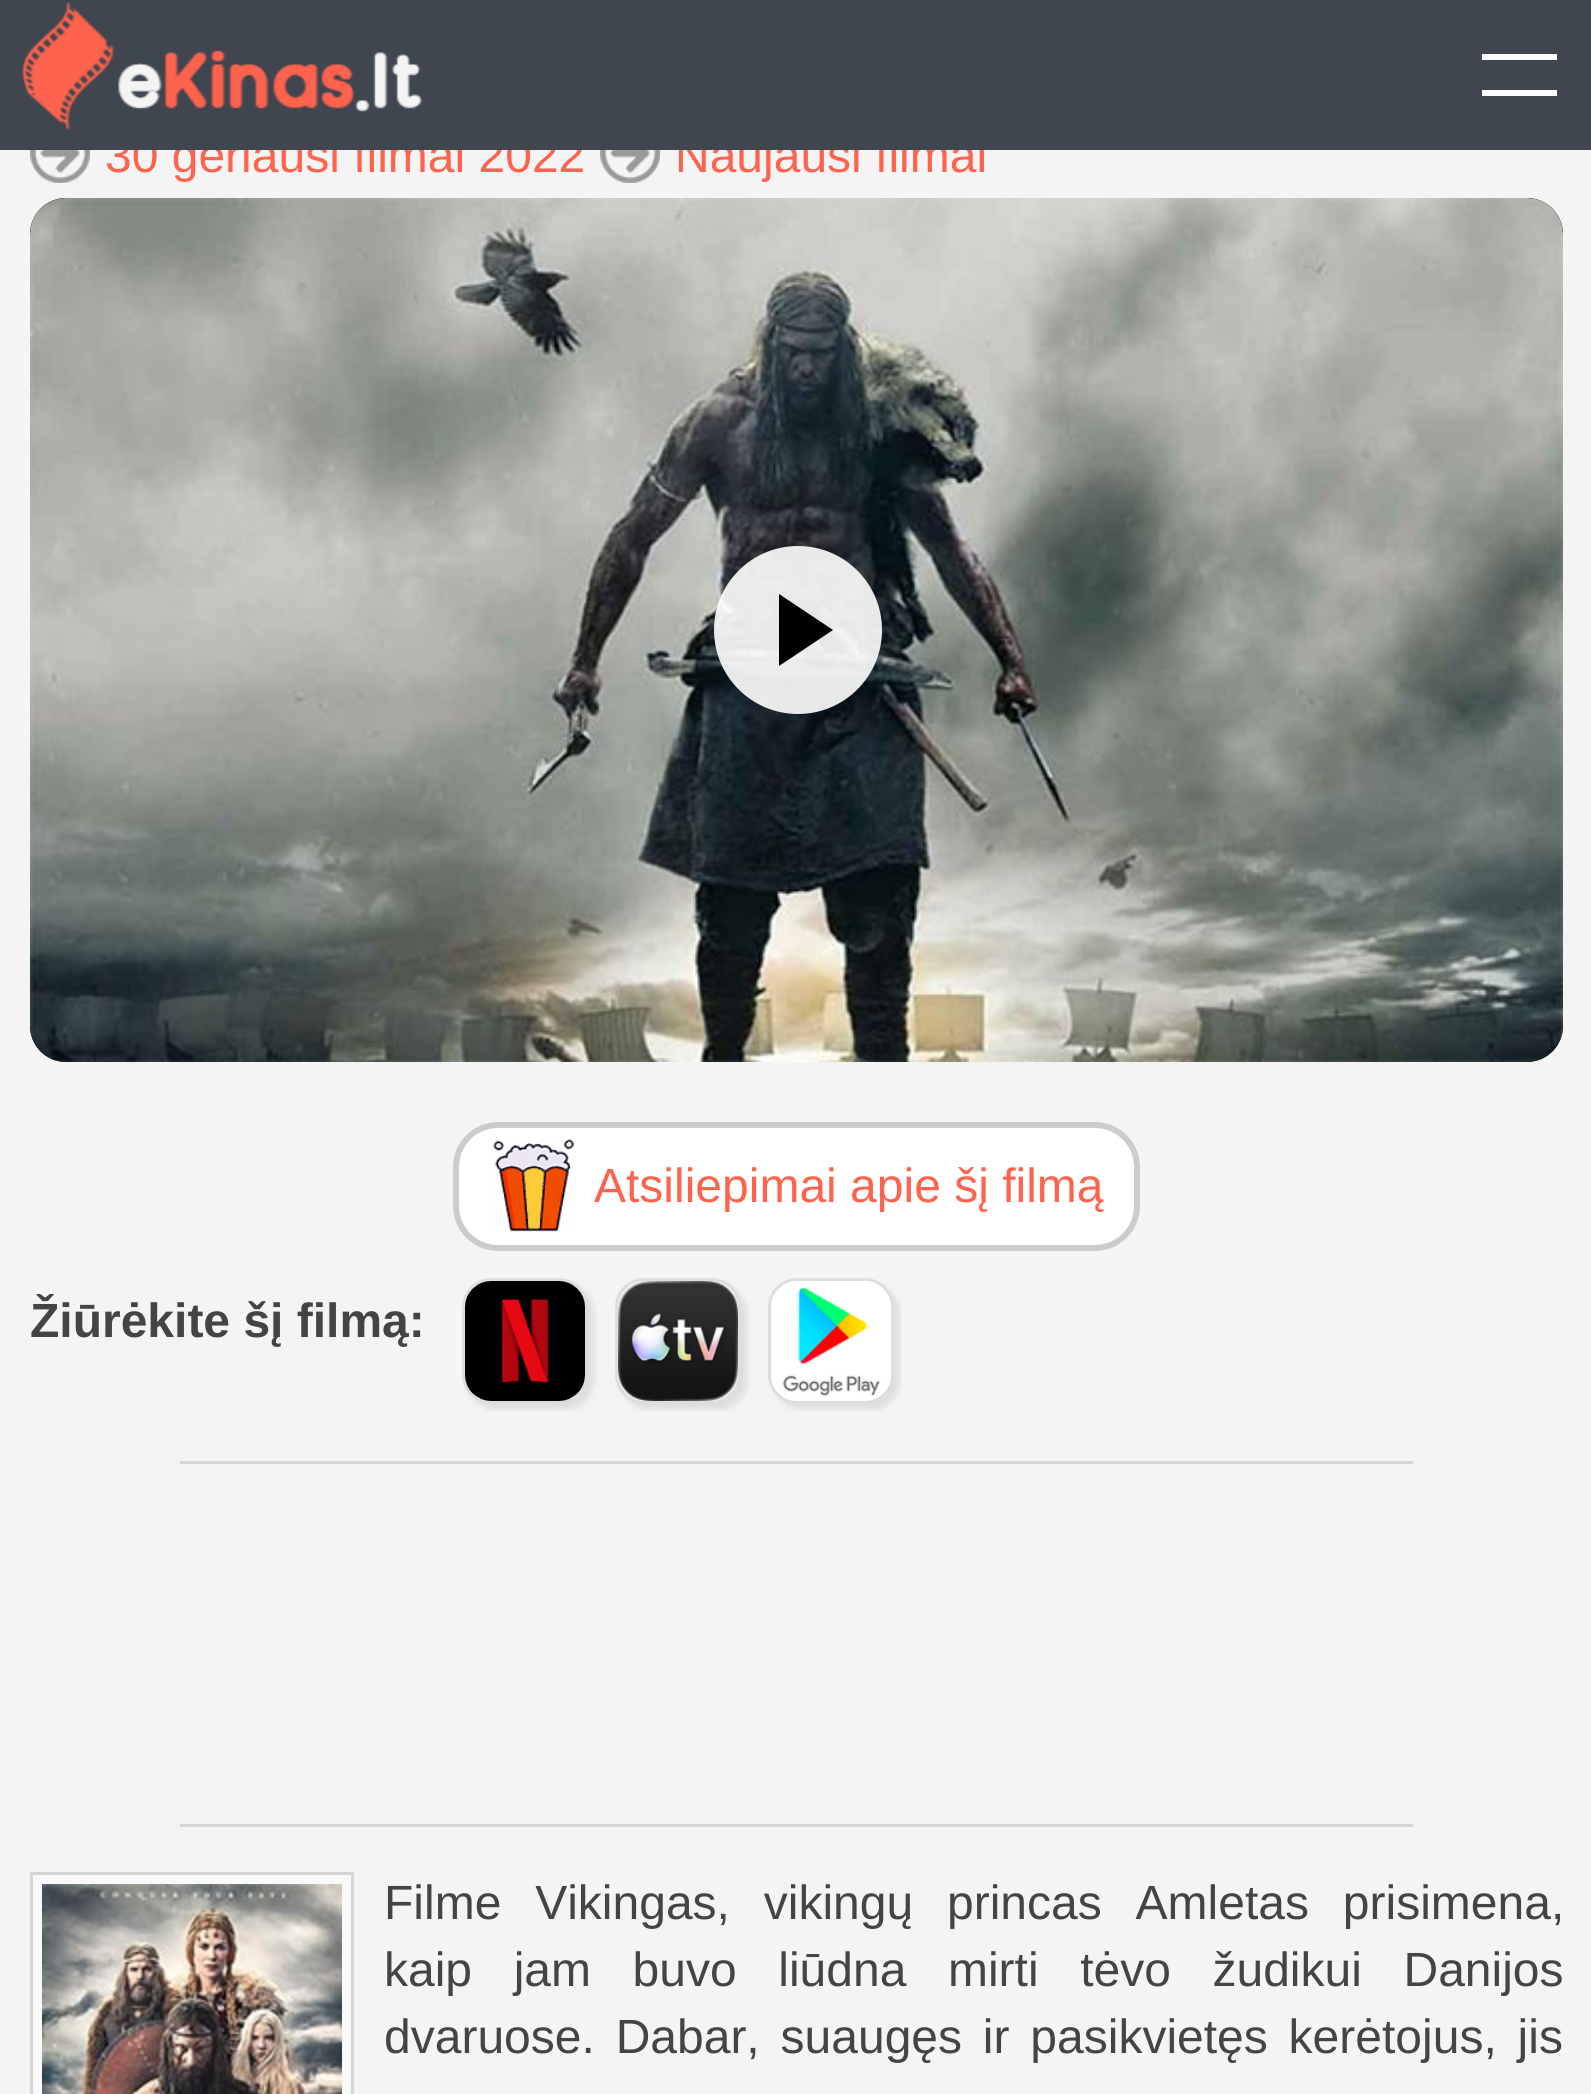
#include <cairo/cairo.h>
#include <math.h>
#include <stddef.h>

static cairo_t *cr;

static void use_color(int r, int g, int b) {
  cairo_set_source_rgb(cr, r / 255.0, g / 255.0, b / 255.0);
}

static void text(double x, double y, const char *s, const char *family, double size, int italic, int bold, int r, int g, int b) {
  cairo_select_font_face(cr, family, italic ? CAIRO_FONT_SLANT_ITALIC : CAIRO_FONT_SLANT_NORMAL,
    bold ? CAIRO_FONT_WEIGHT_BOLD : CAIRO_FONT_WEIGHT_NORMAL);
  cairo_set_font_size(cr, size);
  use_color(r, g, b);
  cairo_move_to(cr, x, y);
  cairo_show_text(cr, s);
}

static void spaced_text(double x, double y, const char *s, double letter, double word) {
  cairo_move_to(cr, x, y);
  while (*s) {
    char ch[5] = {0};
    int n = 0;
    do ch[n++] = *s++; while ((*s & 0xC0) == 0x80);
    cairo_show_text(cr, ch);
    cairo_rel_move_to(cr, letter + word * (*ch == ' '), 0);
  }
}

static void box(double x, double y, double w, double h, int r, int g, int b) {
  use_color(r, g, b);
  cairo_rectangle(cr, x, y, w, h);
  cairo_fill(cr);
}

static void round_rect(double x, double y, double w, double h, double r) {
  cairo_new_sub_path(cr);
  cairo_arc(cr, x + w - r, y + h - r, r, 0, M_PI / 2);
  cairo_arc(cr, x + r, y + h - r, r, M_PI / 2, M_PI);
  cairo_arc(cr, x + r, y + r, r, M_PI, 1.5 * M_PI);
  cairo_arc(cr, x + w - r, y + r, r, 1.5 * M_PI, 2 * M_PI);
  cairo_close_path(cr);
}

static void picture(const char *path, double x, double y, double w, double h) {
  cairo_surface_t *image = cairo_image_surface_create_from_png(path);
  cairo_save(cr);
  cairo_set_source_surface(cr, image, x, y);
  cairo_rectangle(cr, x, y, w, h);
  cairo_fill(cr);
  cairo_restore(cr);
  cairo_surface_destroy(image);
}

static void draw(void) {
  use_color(244, 244, 244);
  cairo_paint(cr);
  picture("img_02.png", 30, 150, 60, 33);
  picture("img_03.png", 600, 150, 60, 33);
  use_color(0, 0, 0);
  round_rect(30, 198, 1533, 864, 36);
  cairo_fill(cr);
  picture("img_04.png", 30, 198, 1533, 864);
  cairo_set_source_rgba(cr, 1, 1, 1, 0.9);
  cairo_arc(cr, 798, 630, 84, 0, 2 * M_PI);
  cairo_fill(cr);
  use_color(0, 0, 0);
  cairo_new_path(cr);
  cairo_move_to(cr, 779, 666);
  cairo_line_to(cr, 779, 594);
  cairo_line_to(cr, 833, 630);
  cairo_close_path(cr);
  cairo_fill(cr);
  use_color(255, 255, 255);
  round_rect(453, 1122, 687, 129, 45);
  cairo_fill(cr);
  picture("img_05.png", 493, 1139, 81, 93);
  round_rect(456, 1125, 681, 123, 42);
  use_color(204, 204, 204);
  cairo_set_line_width(cr, 6);
  cairo_stroke(cr);
  picture("img_06.png", 462, 1278, 440, 134);
  box(180, 1461, 1233, 3, 213, 213, 214);
  box(180, 1824, 1233, 3, 213, 213, 214);
  use_color(249, 249, 249);
  cairo_rectangle(cr, 31.5, 1873.5, 321, 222);
  cairo_fill_preserve(cr);
  use_color(213, 213, 214);
  cairo_set_line_width(cr, 3);
  cairo_stroke(cr);
  picture("img_07.png", 42, 1884, 300, 210);
  text(105, 172, "30 geriausi filmai 2022", "Liberation Sans", 48, 0, 0, 254, 99, 77);
  text(675, 172, "Naujausi filmai", "Liberation Sans", 48, 0, 0, 254, 99, 77);
  box(0, 0, 1591, 150, 63, 70, 80);
  box(1482, 90, 75, 6, 255, 255, 255);
  box(1482, 54, 75, 6, 255, 255, 255);
  picture("img_01.png", 22, 1, 400, 130);
  text(594, 1202, "Atsiliepimai apie šį filmą", "Liberation Sans", 48, 0, 0, 254, 99, 77);
  text(30, 1337, "Žiūrėkite šį filmą:", "Liberation Sans", 48, 0, 1, 68, 68, 68);
  cairo_select_font_face(cr, "Liberation Sans", CAIRO_FONT_SLANT_NORMAL, CAIRO_FONT_WEIGHT_NORMAL);
  spaced_text(384, 1919, "Filme Vikingas, vikingų princas Amletas prisimena,", 0, 20.5);
  spaced_text(384, 1986, "kaip jam buvo liūdna mirti tėvo žudikui Danijos", 0, 28.25);
  spaced_text(384, 2053, "dvaruose. Dabar, suaugęs ir pasikvietęs kerėtojus, jis", 0, 7.5);
}

int main(void) {
  cairo_surface_t *surface = cairo_image_surface_create(CAIRO_FORMAT_RGB24, 1591, 2094);
  cr = cairo_create(surface);
  cairo_font_options_t *options = cairo_font_options_create();
  cairo_font_options_set_hint_metrics(options, CAIRO_HINT_METRICS_OFF);
  cairo_font_options_set_hint_style(options, CAIRO_HINT_STYLE_NONE);
  cairo_set_font_options(cr, options);
  cairo_set_miter_limit(cr, 4);
  draw();
  cairo_surface_write_to_png(surface, "out.png");
  cairo_font_options_destroy(options);
  cairo_destroy(cr);
  cairo_surface_destroy(surface);
  return 0;
}
